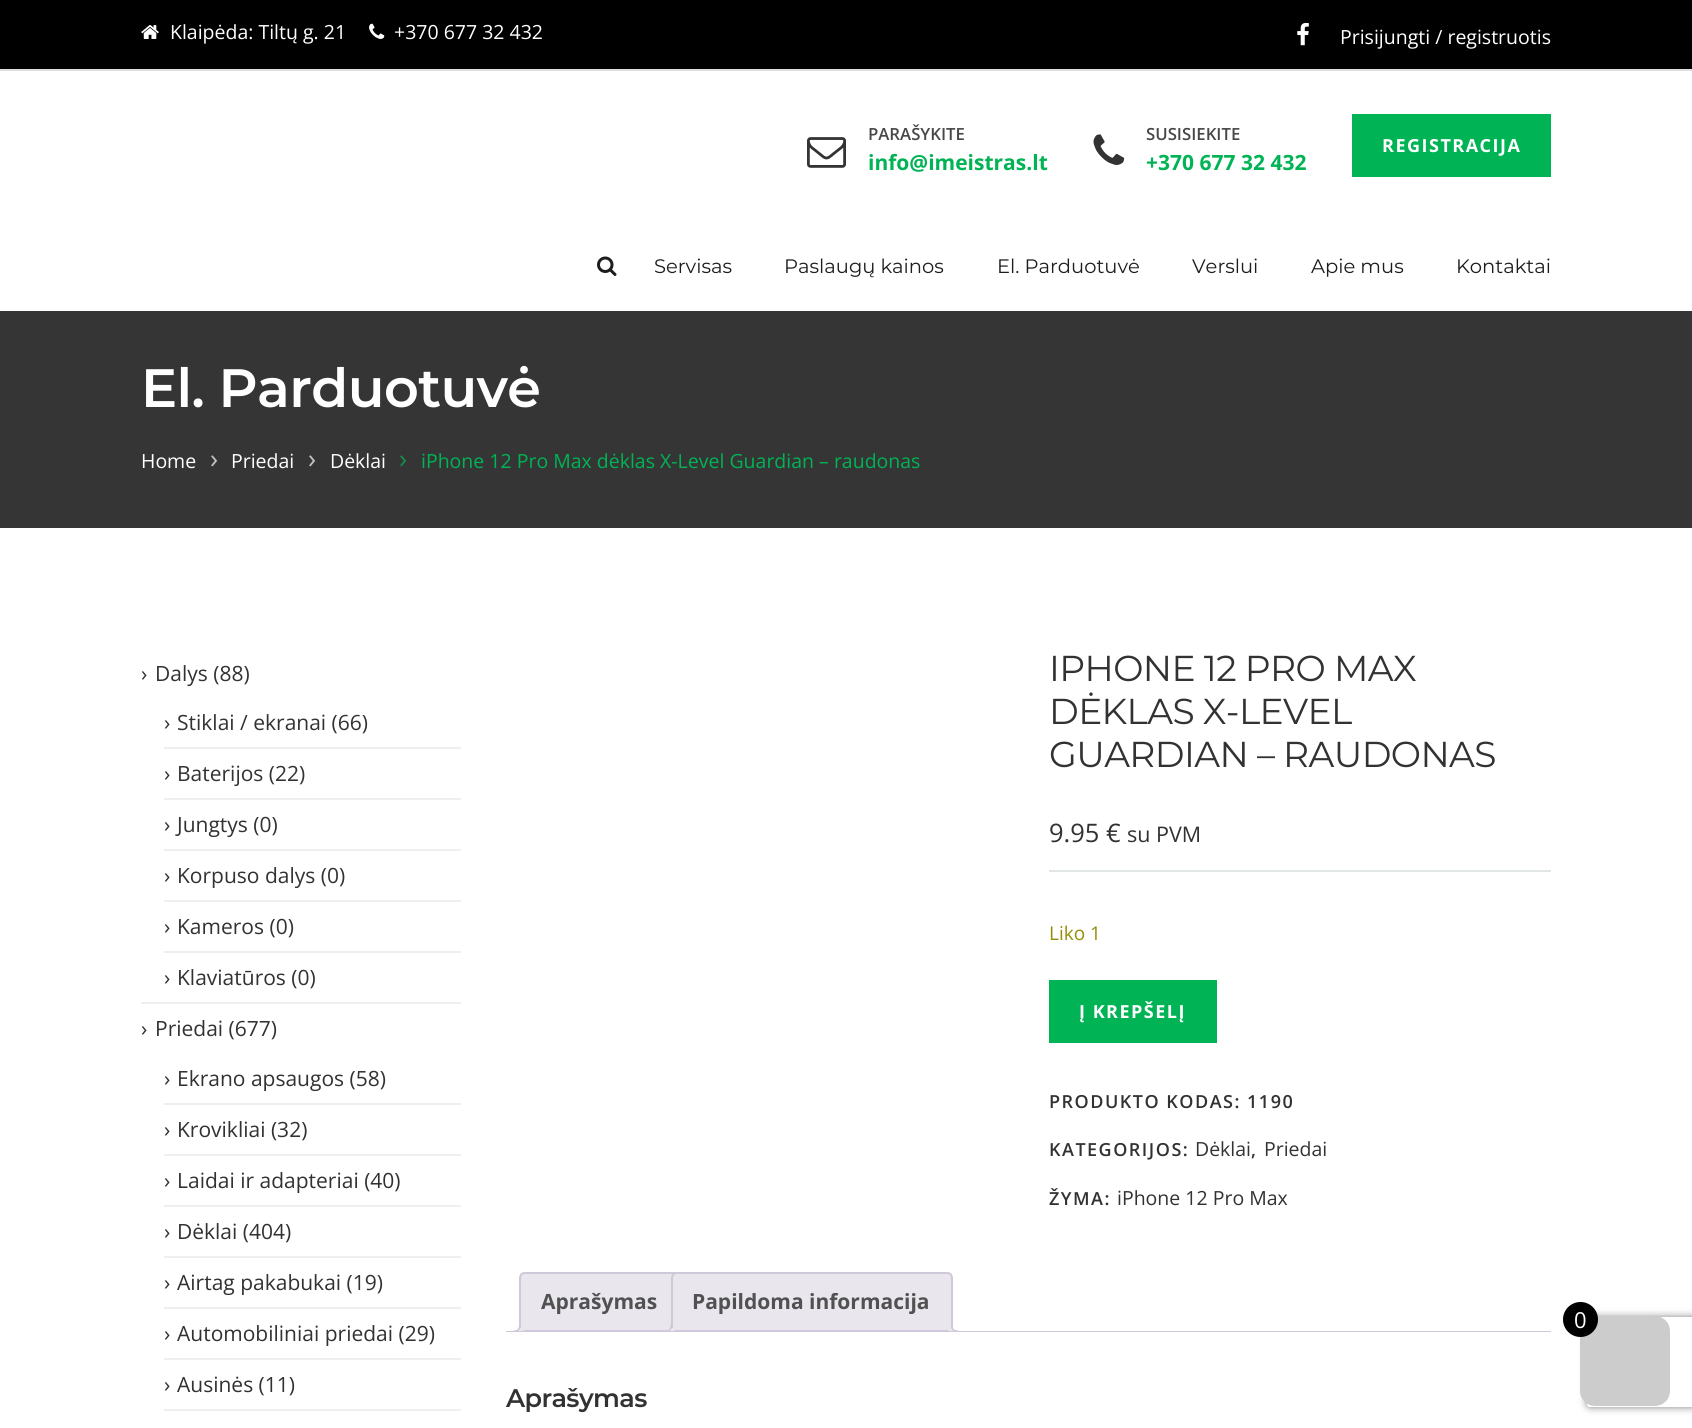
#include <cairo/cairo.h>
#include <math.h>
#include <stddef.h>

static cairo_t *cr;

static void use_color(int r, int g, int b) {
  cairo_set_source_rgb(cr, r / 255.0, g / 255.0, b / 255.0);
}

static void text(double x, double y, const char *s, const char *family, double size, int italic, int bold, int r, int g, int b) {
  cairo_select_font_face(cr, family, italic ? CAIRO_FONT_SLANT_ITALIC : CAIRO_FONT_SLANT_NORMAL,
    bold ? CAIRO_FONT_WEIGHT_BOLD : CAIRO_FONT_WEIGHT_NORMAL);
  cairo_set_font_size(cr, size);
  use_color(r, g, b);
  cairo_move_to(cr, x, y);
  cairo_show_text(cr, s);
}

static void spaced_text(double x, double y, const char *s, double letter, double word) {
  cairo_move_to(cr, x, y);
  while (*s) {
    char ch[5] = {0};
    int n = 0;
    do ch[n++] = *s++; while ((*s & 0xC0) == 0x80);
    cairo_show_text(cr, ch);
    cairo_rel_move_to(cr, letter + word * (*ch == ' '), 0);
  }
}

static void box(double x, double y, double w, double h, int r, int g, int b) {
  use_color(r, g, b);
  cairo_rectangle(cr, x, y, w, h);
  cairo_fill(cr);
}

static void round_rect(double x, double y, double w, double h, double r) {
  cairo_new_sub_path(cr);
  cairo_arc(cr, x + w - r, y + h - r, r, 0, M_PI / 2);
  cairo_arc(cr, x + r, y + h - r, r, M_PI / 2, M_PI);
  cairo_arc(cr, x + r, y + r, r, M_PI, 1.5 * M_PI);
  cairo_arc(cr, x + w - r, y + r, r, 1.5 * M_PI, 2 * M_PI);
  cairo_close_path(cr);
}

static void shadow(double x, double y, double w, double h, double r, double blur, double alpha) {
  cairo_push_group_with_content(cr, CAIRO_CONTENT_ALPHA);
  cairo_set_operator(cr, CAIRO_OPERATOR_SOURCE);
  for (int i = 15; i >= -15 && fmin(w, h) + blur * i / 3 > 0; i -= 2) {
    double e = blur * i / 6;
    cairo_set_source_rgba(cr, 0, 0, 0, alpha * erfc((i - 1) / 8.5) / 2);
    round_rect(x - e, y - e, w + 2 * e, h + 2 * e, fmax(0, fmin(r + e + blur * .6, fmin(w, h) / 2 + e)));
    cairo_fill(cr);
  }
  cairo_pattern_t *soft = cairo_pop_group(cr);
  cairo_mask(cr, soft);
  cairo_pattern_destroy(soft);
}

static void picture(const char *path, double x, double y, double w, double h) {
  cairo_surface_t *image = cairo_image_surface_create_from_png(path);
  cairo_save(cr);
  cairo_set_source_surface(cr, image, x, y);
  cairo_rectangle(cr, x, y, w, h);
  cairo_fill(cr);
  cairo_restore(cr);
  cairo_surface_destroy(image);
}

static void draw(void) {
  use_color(255, 255, 255);
  cairo_paint(cr);
  box(0, 0, 1692, 69, 0, 0, 0);
  box(0, 69, 1692, 2, 224, 224, 224);
  picture("img_01.png", 141, 25, 18, 14);
  picture("img_02.png", 369, 23, 16, 16);
  picture("img_03.png", 1297, 22, 12, 24);
  picture("img_04.png", 807, 137, 39, 31);
  picture("img_05.png", 1093, 134, 32, 31);
  box(1352, 114, 199, 63, 0, 179, 84);
  picture("img_06.png", 597, 256, 20, 20);
  box(0, 311, 1692, 217, 53, 53, 53);
  box(141, 1002, 320, 2, 239, 239, 239);
  box(164, 747, 297, 2, 239, 239, 239);
  box(164, 798, 297, 2, 239, 239, 239);
  box(164, 849, 297, 2, 239, 239, 239);
  box(164, 900, 297, 2, 239, 239, 239);
  box(164, 951, 297, 2, 239, 239, 239);
  box(164, 1103, 297, 2, 239, 239, 239);
  box(164, 1154, 297, 2, 239, 239, 239);
  box(164, 1205, 297, 2, 239, 239, 239);
  box(164, 1256, 297, 2, 239, 239, 239);
  box(164, 1307, 297, 2, 239, 239, 239);
  box(164, 1358, 297, 2, 239, 239, 239);
  box(164, 1409, 297, 2, 239, 239, 239);
  box(1049, 870, 502, 2, 226, 230, 231);
  box(1049, 980, 168, 63, 0, 179, 84);
  use_color(233, 230, 237);
  cairo_new_path(cr);
  cairo_move_to(cr, 525, 1273);
  cairo_line_to(cr, 674, 1273);
  cairo_curve_to(cr, 677, 1273, 679, 1275, 679, 1278);
  cairo_line_to(cr, 679, 1331);
  cairo_line_to(cr, 520, 1331);
  cairo_line_to(cr, 520, 1278);
  cairo_curve_to(cr, 520, 1275, 522, 1273, 525, 1273);
  cairo_close_path(cr);
  cairo_fill_preserve(cr);
  use_color(207, 200, 216);
  cairo_stroke(cr);
  cairo_save(cr);
  cairo_rectangle(cr, 506, 1272, 1045, 60);
  cairo_clip(cr);
  use_color(233, 230, 237);
  cairo_new_path(cr);
  cairo_move_to(cr, 516, 1332);
  cairo_line_to(cr, 516, 1335);
  cairo_curve_to(cr, 521, 1335, 524, 1333.5, 524, 1328);
  cairo_line_to(cr, 520, 1328);
  cairo_curve_to(cr, 519.5, 1330, 518, 1331.5, 516, 1332);
  cairo_close_path(cr);
  cairo_fill(cr);
  cairo_restore(cr);
  cairo_set_fill_rule(cr, CAIRO_FILL_RULE_EVEN_ODD);
  cairo_new_path(cr);
  cairo_move_to(cr, 513, 1324.5);
  cairo_line_to(cr, 520.5, 1324.5);
  cairo_curve_to(cr, 520.5, 1330, 518.5, 1332, 513, 1332);
  cairo_close_path(cr);
  cairo_move_to(cr, 513, 1324.5);
  cairo_line_to(cr, 519, 1324.5);
  cairo_curve_to(cr, 519, 1329, 517.5, 1330.5, 513, 1330.5);
  cairo_close_path(cr);
  cairo_fill(cr);
  use_color(233, 230, 237);
  cairo_new_path(cr);
  cairo_move_to(cr, 677, 1273);
  cairo_line_to(cr, 947, 1273);
  cairo_curve_to(cr, 950, 1273, 952, 1275, 952, 1278);
  cairo_line_to(cr, 952, 1331);
  cairo_line_to(cr, 672, 1331);
  cairo_line_to(cr, 672, 1278);
  cairo_curve_to(cr, 672, 1275, 674, 1273, 677, 1273);
  cairo_close_path(cr);
  cairo_fill_preserve(cr);
  use_color(207, 200, 216);
  cairo_stroke(cr);
  cairo_save(cr);
  cairo_set_fill_rule(cr, CAIRO_FILL_RULE_WINDING);
  cairo_rectangle(cr, 506, 1272, 1045, 60);
  cairo_clip(cr);
  use_color(233, 230, 237);
  cairo_new_path(cr);
  cairo_move_to(cr, 668, 1331.5);
  cairo_line_to(cr, 668, 1335);
  cairo_curve_to(cr, 672.5, 1335, 675, 1332.5, 675, 1328);
  cairo_line_to(cr, 671.5, 1328);
  cairo_curve_to(cr, 671, 1329.5, 669.5, 1331, 668, 1331.5);
  cairo_close_path(cr);
  cairo_fill(cr);
  cairo_restore(cr);
  cairo_new_path(cr);
  cairo_move_to(cr, 664.5, 1324.5);
  cairo_line_to(cr, 672, 1324.5);
  cairo_curve_to(cr, 672, 1330, 670, 1332, 664.5, 1332);
  cairo_close_path(cr);
  cairo_move_to(cr, 664.5, 1324.5);
  cairo_line_to(cr, 670.5, 1324.5);
  cairo_curve_to(cr, 670.5, 1329, 669, 1330.5, 664.5, 1330.5);
  cairo_close_path(cr);
  cairo_fill(cr);
  cairo_save(cr);
  cairo_set_fill_rule(cr, CAIRO_FILL_RULE_WINDING);
  cairo_rectangle(cr, 506, 1272, 1045, 60);
  cairo_clip(cr);
  use_color(233, 230, 237);
  cairo_new_path(cr);
  cairo_move_to(cr, 948, 1328);
  cairo_curve_to(cr, 948, 1333.5, 951, 1335, 956, 1335);
  cairo_line_to(cr, 956, 1332);
  cairo_curve_to(cr, 954, 1331.5, 952, 1330, 951.5, 1328);
  cairo_close_path(cr);
  cairo_fill(cr);
  cairo_restore(cr);
  cairo_new_path(cr);
  cairo_move_to(cr, 951, 1324.5);
  cairo_line_to(cr, 958.5, 1324.5);
  cairo_line_to(cr, 958.5, 1332);
  cairo_curve_to(cr, 954.5, 1332, 951, 1330.5, 951, 1326);
  cairo_close_path(cr);
  cairo_move_to(cr, 952.5, 1324.5);
  cairo_line_to(cr, 958.5, 1324.5);
  cairo_line_to(cr, 958.5, 1330.5);
  cairo_curve_to(cr, 955.5, 1330.5, 952.5, 1329.5, 952.5, 1326);
  cairo_close_path(cr);
  cairo_fill(cr);
  box(506, 1331, 1045, 1, 207, 200, 216);
  cairo_save(cr);
  cairo_new_path(cr);
  cairo_move_to(cr, 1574, 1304);
  cairo_line_to(cr, 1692, 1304);
  cairo_line_to(cr, 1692, 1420);
  cairo_line_to(cr, 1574, 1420);
  cairo_close_path(cr);
  cairo_move_to(cr, 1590, 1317);
  cairo_line_to(cr, 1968, 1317);
  cairo_curve_to(cr, 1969.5, 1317, 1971, 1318.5, 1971, 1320);
  cairo_line_to(cr, 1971, 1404);
  cairo_curve_to(cr, 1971, 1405.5, 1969.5, 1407, 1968, 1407);
  cairo_line_to(cr, 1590, 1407);
  cairo_curve_to(cr, 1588.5, 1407, 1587, 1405.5, 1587, 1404);
  cairo_line_to(cr, 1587, 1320);
  cairo_curve_to(cr, 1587, 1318.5, 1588.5, 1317, 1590, 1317);
  cairo_close_path(cr);
  cairo_clip(cr);
  use_color(128, 128, 128);
  shadow(1587, 1317, 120, 90, 3, 4, 1);
  cairo_restore(cr);
  use_color(204, 204, 204);
  round_rect(1581, 1317, 88, 88, 14);
  cairo_fill_preserve(cr);
  cairo_stroke(cr);
  use_color(0, 0, 0);
  cairo_arc(cr, 1580.5, 1319.5, 17.5, 0, 2 * M_PI);
  cairo_fill(cr);
  text(170, 39, "Klaipėda: Tiltų g. 21", "Open Sans", 19.5, 0, 0, 255, 255, 255);
  text(394, 39, "+370 677 32 432", "Open Sans", 19.5, 0, 0, 255, 255, 255);
  text(1340, 44, "Prisijungti / registruotis", "Open Sans", 19.5, 0, 0, 255, 255, 255);
  text(868, 140, "PARAŠYKITE", "Open Sans SemiBold", 16.75, 0, 0, 71, 71, 71);
  text(868, 170, "info@imeistras.lt", "Open Sans", 21, 0, 1, 0, 179, 84);
  text(1146, 140, "SUSISIEKITE", "Open Sans SemiBold", 16.75, 0, 0, 71, 71, 71);
  text(1146, 170, "+370 677 32 432", "Open Sans", 21, 0, 1, 0, 179, 84);
  cairo_set_font_size(cr, 18);
  use_color(255, 255, 255);
  spaced_text(1382, 152, "REGISTRACIJA", 1.5, 0);
  text(654, 273, "Servisas", "Montserrat", 19.5, 0, 0, 29, 29, 29);
  text(784, 273, "Paslaugų kainos", "Montserrat", 19.5, 0, 0, 29, 29, 29);
  text(997, 273, "El. Parduotuvė", "Montserrat", 19.5, 0, 0, 29, 29, 29);
  text(1192, 273, "Verslui", "Montserrat", 19.5, 0, 0, 29, 29, 29);
  text(1311, 273, "Apie mus", "Montserrat", 19.5, 0, 0, 29, 29, 29);
  text(1456, 273, "Kontaktai", "Montserrat", 19.5, 0, 0, 29, 29, 29);
  cairo_select_font_face(cr, "Montserrat SemiBold", CAIRO_FONT_SLANT_NORMAL, CAIRO_FONT_WEIGHT_NORMAL);
  cairo_set_font_size(cr, 54);
  use_color(255, 255, 255);
  spaced_text(141, 407, "El. Parduotuvė", -0.6, 0);
  text(141, 468, "Home", "Open Sans", 19.5, 0, 0, 255, 255, 255);
  text(210, 468, "›", "Open Sans", 27, 0, 0, 194, 194, 194);
  text(231, 468, "Priedai", "Open Sans", 19.5, 0, 0, 255, 255, 255);
  text(308, 468, "›", "Open Sans", 27, 0, 0, 194, 194, 194);
  text(330, 468, "Dėklai", "Open Sans", 19.5, 0, 0, 255, 255, 255);
  text(399, 468, "›", "Open Sans", 27, 0, 0, 16, 141, 75);
  text(421, 468, "iPhone 12 Pro Max dėklas X-Level Guardian – raudonas", "Open Sans", 19.5, 0, 0, 0, 179, 84);
  text(141, 681, "›", "Open Sans", 21, 0, 0, 50, 50, 50);
  text(155, 681, "Dalys (88)", "Open Sans", 21, 0, 0, 50, 50, 50);
  text(164, 730, "›", "Open Sans", 21, 0, 0, 50, 50, 50);
  text(177, 730, "Stiklai / ekranai (66)", "Open Sans", 21, 0, 0, 50, 50, 50);
  text(164, 781, "›", "Open Sans", 21, 0, 0, 50, 50, 50);
  text(177, 781, "Baterijos (22)", "Open Sans", 21, 0, 0, 50, 50, 50);
  text(164, 832, "›", "Open Sans", 21, 0, 0, 50, 50, 50);
  text(177, 832, "Jungtys (0)", "Open Sans", 21, 0, 0, 50, 50, 50);
  text(164, 883, "›", "Open Sans", 21, 0, 0, 50, 50, 50);
  text(177, 883, "Korpuso dalys (0)", "Open Sans", 21, 0, 0, 50, 50, 50);
  text(164, 934, "›", "Open Sans", 21, 0, 0, 50, 50, 50);
  text(177, 934, "Kameros (0)", "Open Sans", 21, 0, 0, 50, 50, 50);
  text(164, 985, "›", "Open Sans", 21, 0, 0, 50, 50, 50);
  text(177, 985, "Klaviatūros (0)", "Open Sans", 21, 0, 0, 50, 50, 50);
  text(141, 1036, "›", "Open Sans", 21, 0, 0, 50, 50, 50);
  text(155, 1036, "Priedai (677)", "Open Sans", 21, 0, 0, 50, 50, 50);
  text(164, 1086, "›", "Open Sans", 21, 0, 0, 50, 50, 50);
  text(177, 1086, "Ekrano apsaugos (58)", "Open Sans", 21, 0, 0, 50, 50, 50);
  text(164, 1137, "›", "Open Sans", 21, 0, 0, 50, 50, 50);
  text(177, 1137, "Krovikliai (32)", "Open Sans", 21, 0, 0, 50, 50, 50);
  text(164, 1188, "›", "Open Sans", 21, 0, 0, 50, 50, 50);
  text(177, 1188, "Laidai ir adapteriai (40)", "Open Sans", 21, 0, 0, 50, 50, 50);
  text(164, 1239, "›", "Open Sans", 21, 0, 0, 50, 50, 50);
  text(177, 1239, "Dėklai (404)", "Open Sans", 21, 0, 0, 50, 50, 50);
  text(164, 1290, "›", "Open Sans", 21, 0, 0, 50, 50, 50);
  text(177, 1290, "Airtag pakabukai (19)", "Open Sans", 21, 0, 0, 50, 50, 50);
  text(164, 1341, "›", "Open Sans", 21, 0, 0, 50, 50, 50);
  text(177, 1341, "Automobiliniai priedai (29)", "Open Sans", 21, 0, 0, 50, 50, 50);
  text(164, 1392, "›", "Open Sans", 21, 0, 0, 50, 50, 50);
  text(177, 1392, "Ausinės (11)", "Open Sans", 21, 0, 0, 50, 50, 50);
  cairo_select_font_face(cr, "Montserrat", CAIRO_FONT_SLANT_NORMAL, CAIRO_FONT_WEIGHT_NORMAL);
  cairo_set_font_size(cr, 36);
  spaced_text(1049, 681, "IPHONE 12 PRO MAX", -0.6, 0);
  spaced_text(1049, 724, "DĖKLAS X-LEVEL", -0.6, 0);
  spaced_text(1049, 767, "GUARDIAN – RAUDONAS", -0.6, 0);
  text(1049, 842, "9.95 €", "Open Sans", 25.5, 0, 0, 50, 50, 50);
  text(1127, 842, "su PVM", "Open Sans", 21.5, 0, 0, 50, 50, 50);
  text(1049, 940, "Liko 1", "Open Sans", 19, 0, 0, 149, 142, 9);
  cairo_select_font_face(cr, "Open Sans", CAIRO_FONT_SLANT_NORMAL, CAIRO_FONT_WEIGHT_BOLD);
  cairo_set_font_size(cr, 18);
  use_color(255, 255, 255);
  spaced_text(1079, 1018, "Į KREPŠELĮ", 1.5, 0);
  cairo_select_font_face(cr, "Open Sans SemiBold", CAIRO_FONT_SLANT_NORMAL, CAIRO_FONT_WEIGHT_NORMAL);
  use_color(50, 50, 50);
  spaced_text(1049, 1108, "PRODUKTO KODAS: 1190", 1.5, 0);
  spaced_text(1049, 1156, "KATEGORIJOS:", 1.5, 0);
  text(1195, 1156, "Dėklai", "Open Sans", 19.5, 0, 0, 50, 50, 50);
  cairo_select_font_face(cr, "Open Sans SemiBold", CAIRO_FONT_SLANT_NORMAL, CAIRO_FONT_WEIGHT_NORMAL);
  cairo_set_font_size(cr, 18);
  spaced_text(1251, 1156, ",", 1.5, 0);
  text(1264, 1156, "Priedai", "Open Sans", 19.5, 0, 0, 50, 50, 50);
  cairo_select_font_face(cr, "Open Sans SemiBold", CAIRO_FONT_SLANT_NORMAL, CAIRO_FONT_WEIGHT_NORMAL);
  cairo_set_font_size(cr, 18);
  spaced_text(1049, 1205, "ŽYMA:", 1.5, 0);
  text(1117, 1205, "iPhone 12 Pro Max", "Open Sans", 19.5, 0, 0, 50, 50, 50);
  text(541, 1309, "Aprašymas", "Open Sans", 21, 0, 1, 81, 81, 81);
  text(692, 1309, "Papildoma informacija", "Open Sans", 21, 0, 1, 81, 81, 81);
  cairo_select_font_face(cr, "Montserrat SemiBold", CAIRO_FONT_SLANT_NORMAL, CAIRO_FONT_WEIGHT_NORMAL);
  cairo_set_font_size(cr, 25.5);
  use_color(50, 50, 50);
  spaced_text(506, 1407, "Aprašymas", -0.6, 0);
  text(1574, 1328, "0", "Open Sans", 22, 0, 0, 255, 255, 255);
}

int main(void) {
  cairo_surface_t *surface = cairo_image_surface_create(CAIRO_FORMAT_RGB24, 1692, 1428);
  cr = cairo_create(surface);
  cairo_font_options_t *options = cairo_font_options_create();
  cairo_font_options_set_hint_metrics(options, CAIRO_HINT_METRICS_OFF);
  cairo_font_options_set_hint_style(options, CAIRO_HINT_STYLE_NONE);
  cairo_set_font_options(cr, options);
  cairo_set_miter_limit(cr, 4);
  draw();
  cairo_surface_write_to_png(surface, "out.png");
  cairo_font_options_destroy(options);
  cairo_destroy(cr);
  cairo_surface_destroy(surface);
  return 0;
}
